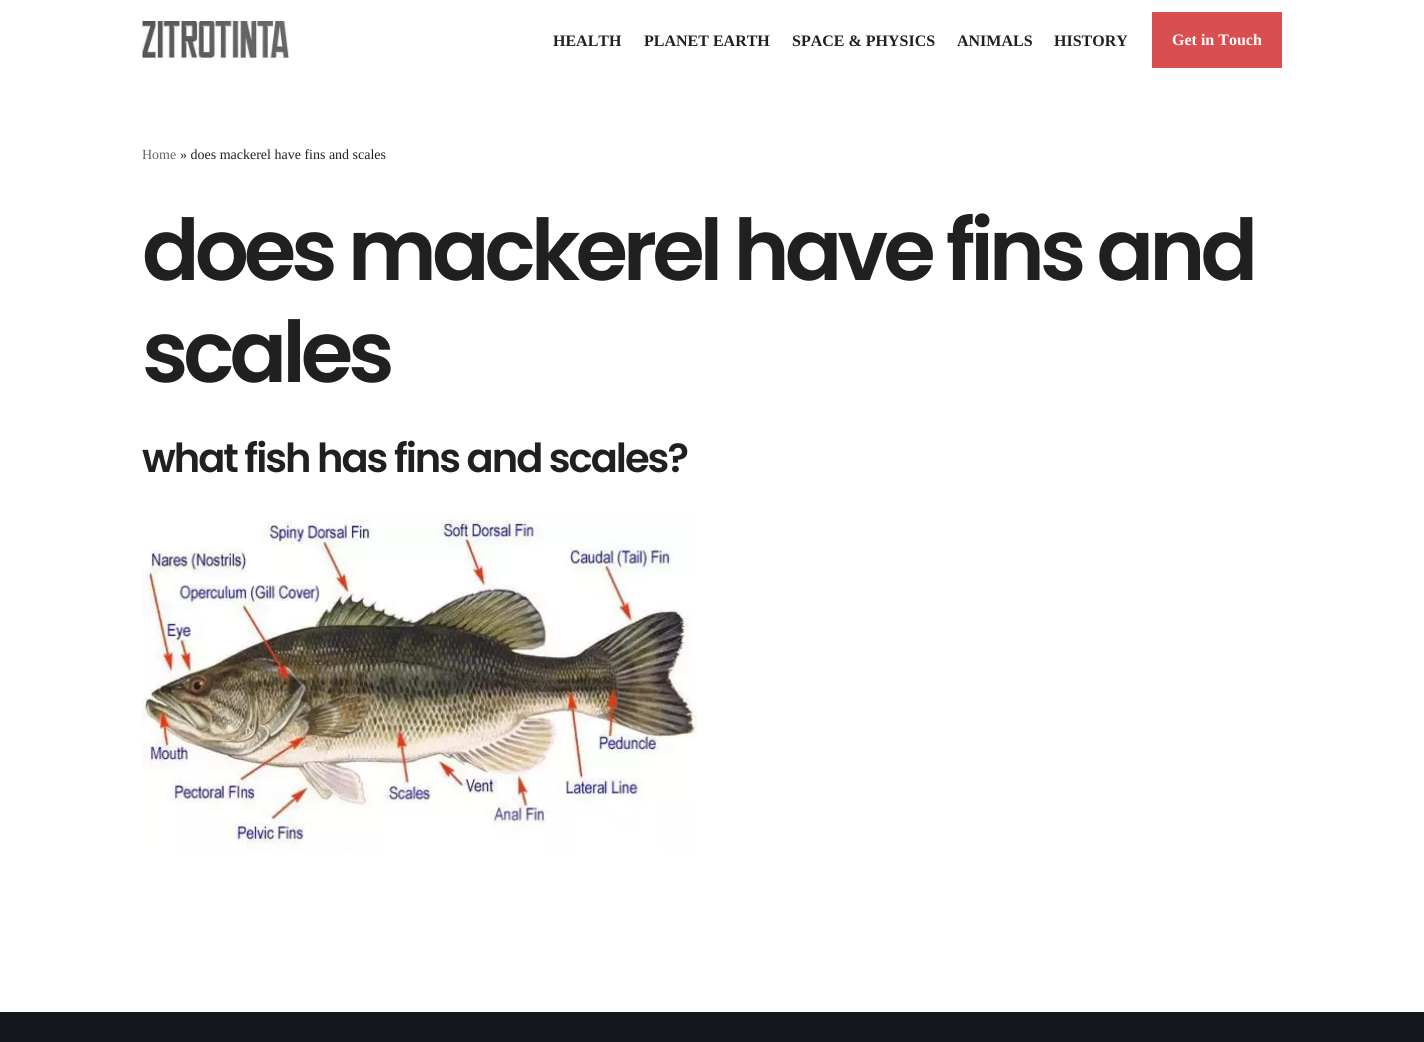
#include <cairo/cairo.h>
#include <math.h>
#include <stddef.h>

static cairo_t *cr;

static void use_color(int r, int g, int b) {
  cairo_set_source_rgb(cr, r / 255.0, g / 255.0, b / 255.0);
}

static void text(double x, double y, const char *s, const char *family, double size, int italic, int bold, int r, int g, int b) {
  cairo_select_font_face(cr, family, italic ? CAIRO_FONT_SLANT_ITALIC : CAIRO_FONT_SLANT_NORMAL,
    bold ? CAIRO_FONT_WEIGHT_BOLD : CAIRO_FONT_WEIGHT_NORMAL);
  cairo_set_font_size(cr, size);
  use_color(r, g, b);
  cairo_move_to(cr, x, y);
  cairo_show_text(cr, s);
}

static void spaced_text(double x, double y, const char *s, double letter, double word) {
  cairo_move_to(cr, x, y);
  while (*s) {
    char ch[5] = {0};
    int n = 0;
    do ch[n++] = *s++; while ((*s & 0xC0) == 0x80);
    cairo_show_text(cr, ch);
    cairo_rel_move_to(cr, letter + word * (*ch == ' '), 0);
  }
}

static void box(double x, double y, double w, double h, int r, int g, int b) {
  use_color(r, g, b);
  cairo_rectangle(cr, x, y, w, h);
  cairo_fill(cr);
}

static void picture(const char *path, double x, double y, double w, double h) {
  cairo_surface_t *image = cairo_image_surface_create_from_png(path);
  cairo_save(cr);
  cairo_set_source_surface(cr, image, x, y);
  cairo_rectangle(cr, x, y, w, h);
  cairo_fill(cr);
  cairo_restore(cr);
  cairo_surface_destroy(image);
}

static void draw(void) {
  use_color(255, 255, 255);
  cairo_paint(cr);
  picture("img_01.png", 142, 21, 147, 37);
  box(1152, 12, 130, 56, 217, 79, 79);
  picture("img_02.png", 142, 517, 555, 334);
  box(0, 1012, 1424, 30, 20, 23, 28);
  text(553, 46, "HEALTH", "Liberation Serif", 16, 0, 1, 31, 32, 33);
  text(644, 46, "PLANET EARTH", "Liberation Serif", 16, 0, 1, 31, 32, 33);
  text(792, 46, "SPACE & PHYSICS", "Liberation Serif", 16, 0, 1, 31, 32, 33);
  text(957, 46, "ANIMALS", "Liberation Serif", 16, 0, 1, 31, 32, 33);
  text(1054, 46, "HISTORY", "Liberation Serif", 16, 0, 1, 31, 32, 33);
  text(1172, 45, "Get in Touch", "Liberation Serif", 16, 0, 1, 255, 255, 255);
  text(142, 159, "Home", "Liberation Serif", 14, 0, 0, 103, 103, 103);
  text(180, 159, "» does mackerel have fins and scales", "Liberation Serif", 14, 0, 0, 31, 32, 33);
  cairo_select_font_face(cr, "Poppins SemiBold", CAIRO_FONT_SLANT_NORMAL, CAIRO_FONT_WEIGHT_NORMAL);
  cairo_set_font_size(cr, 85);
  spaced_text(142, 280, "does mackerel have fins and", -5, 0);
  spaced_text(142, 382, "scales", -5, 0);
  cairo_set_font_size(cr, 40);
  spaced_text(142, 472, "what fish has fins and scales?", -2, 0);
}

int main(void) {
  cairo_surface_t *surface = cairo_image_surface_create(CAIRO_FORMAT_RGB24, 1424, 1042);
  cr = cairo_create(surface);
  cairo_font_options_t *options = cairo_font_options_create();
  cairo_font_options_set_hint_metrics(options, CAIRO_HINT_METRICS_OFF);
  cairo_font_options_set_hint_style(options, CAIRO_HINT_STYLE_NONE);
  cairo_set_font_options(cr, options);
  cairo_set_miter_limit(cr, 4);
  draw();
  cairo_surface_write_to_png(surface, "out.png");
  cairo_font_options_destroy(options);
  cairo_destroy(cr);
  cairo_surface_destroy(surface);
  return 0;
}
